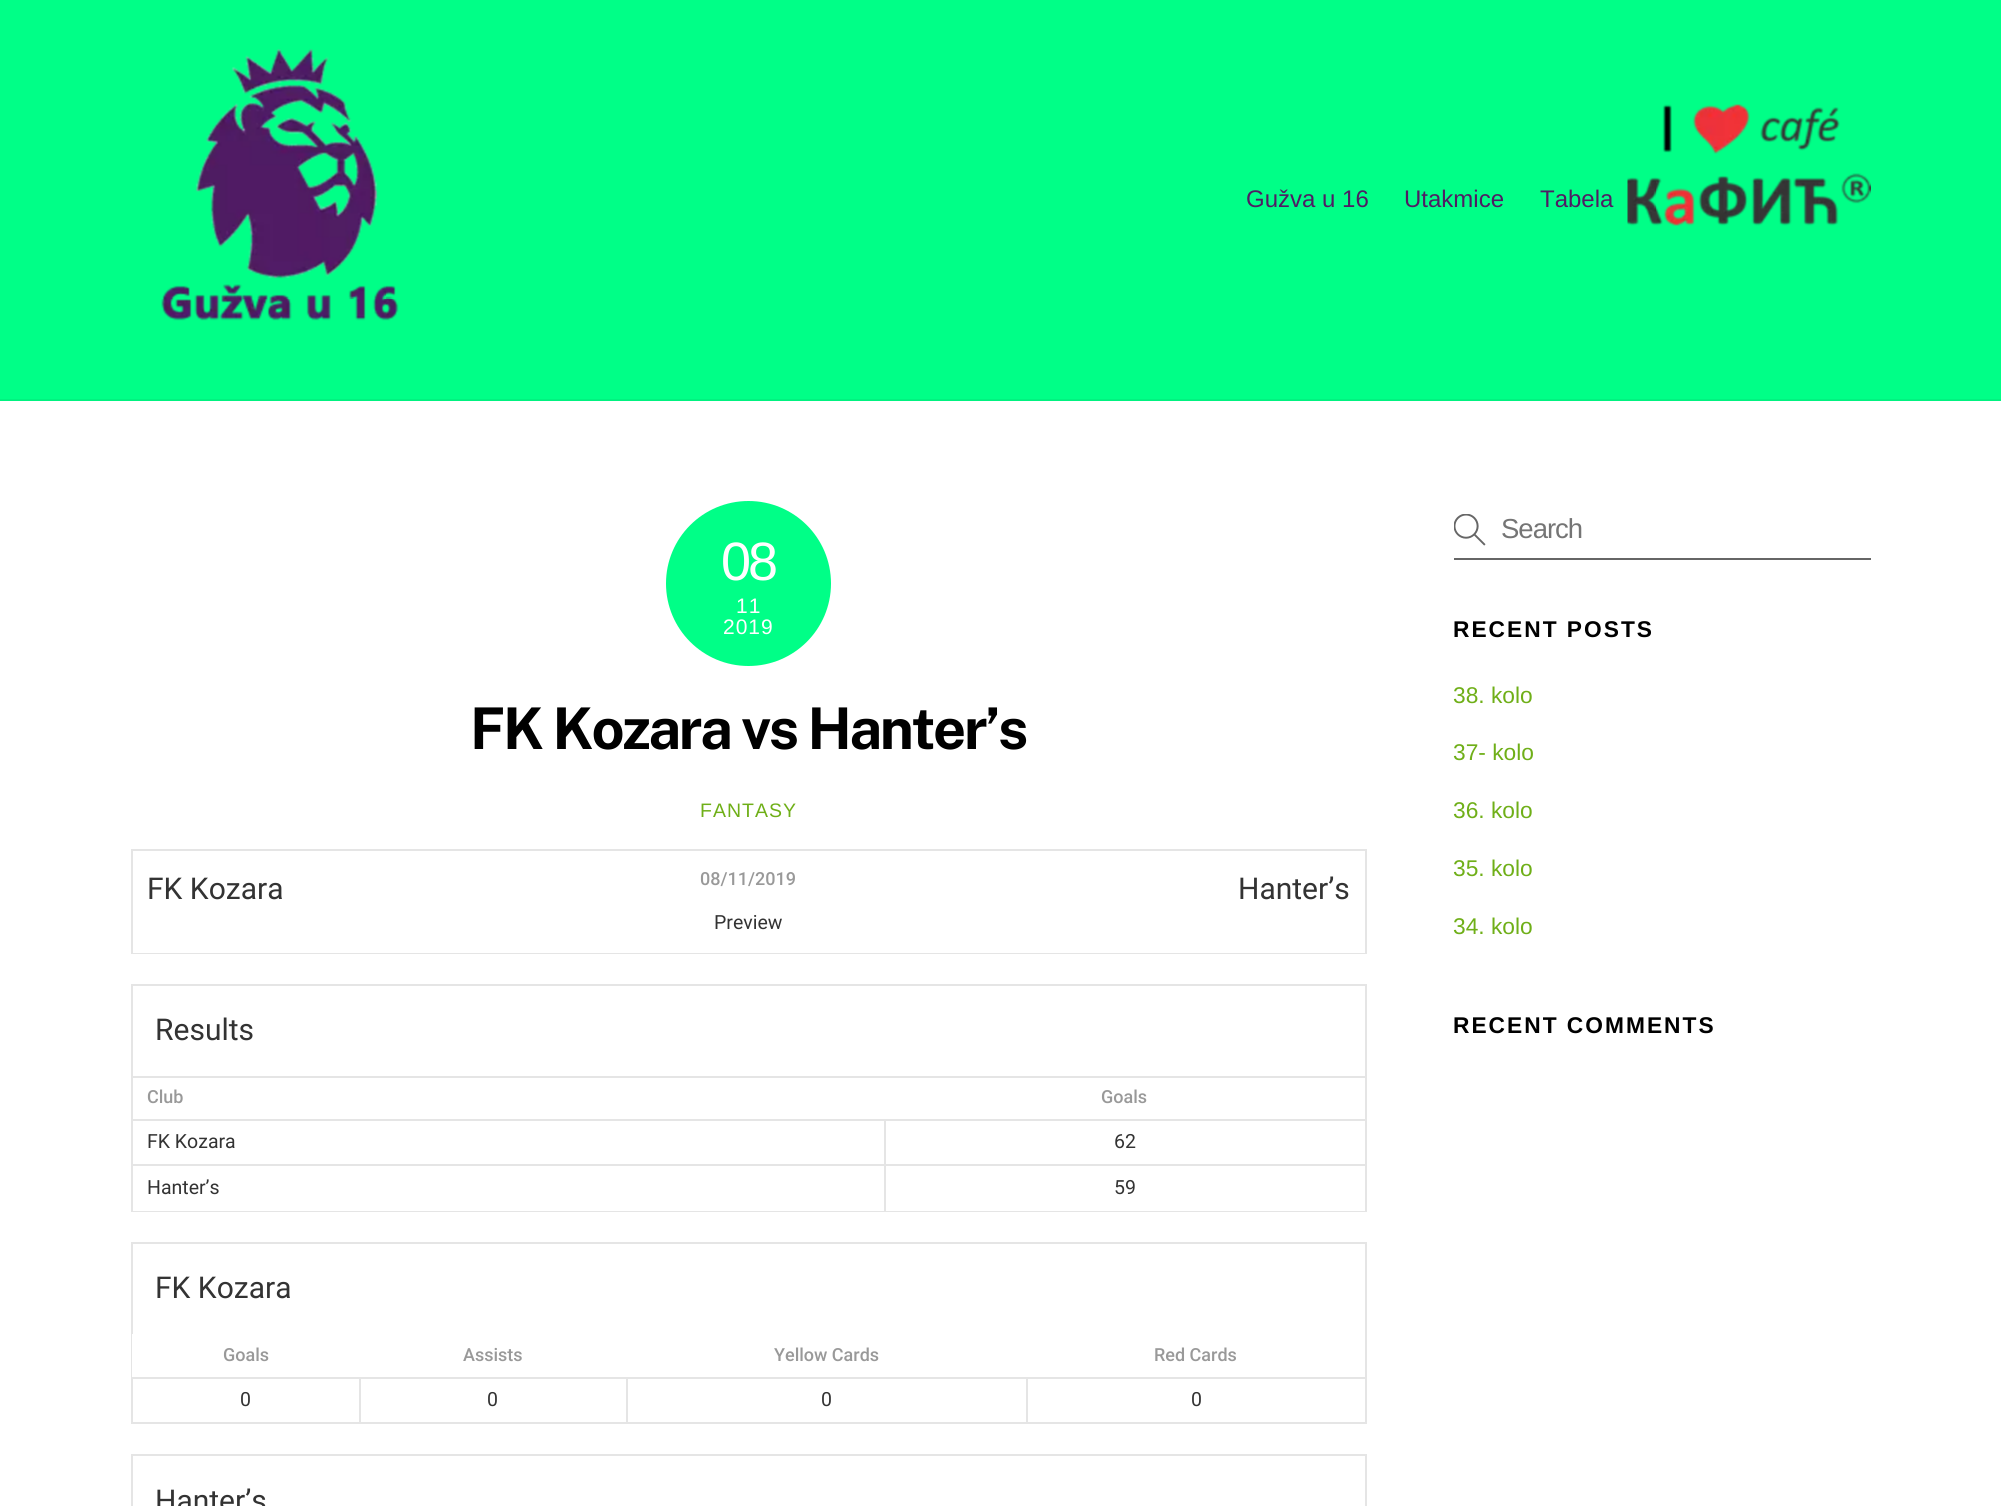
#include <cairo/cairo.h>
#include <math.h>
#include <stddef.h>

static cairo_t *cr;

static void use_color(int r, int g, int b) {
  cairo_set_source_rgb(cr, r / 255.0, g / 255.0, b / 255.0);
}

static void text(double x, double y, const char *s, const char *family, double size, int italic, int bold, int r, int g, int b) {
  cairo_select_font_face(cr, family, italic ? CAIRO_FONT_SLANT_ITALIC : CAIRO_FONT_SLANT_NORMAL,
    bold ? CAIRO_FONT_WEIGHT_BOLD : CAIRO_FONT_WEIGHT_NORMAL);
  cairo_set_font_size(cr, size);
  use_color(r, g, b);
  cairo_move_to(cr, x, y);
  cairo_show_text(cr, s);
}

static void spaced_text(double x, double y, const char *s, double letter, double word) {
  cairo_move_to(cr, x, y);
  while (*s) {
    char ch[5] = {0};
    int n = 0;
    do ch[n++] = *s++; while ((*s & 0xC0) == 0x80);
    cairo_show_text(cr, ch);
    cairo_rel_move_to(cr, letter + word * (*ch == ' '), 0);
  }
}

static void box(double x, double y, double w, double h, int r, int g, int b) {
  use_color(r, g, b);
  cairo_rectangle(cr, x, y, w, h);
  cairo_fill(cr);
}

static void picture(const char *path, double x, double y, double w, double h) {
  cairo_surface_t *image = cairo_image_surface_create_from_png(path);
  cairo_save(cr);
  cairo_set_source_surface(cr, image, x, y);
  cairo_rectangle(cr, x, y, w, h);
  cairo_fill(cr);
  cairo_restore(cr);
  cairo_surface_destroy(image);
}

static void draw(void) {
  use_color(255, 255, 255);
  cairo_paint(cr);
  box(0, 0, 2001, 399, 0, 255, 135);
  box(0, 399, 2001, 2, 0, 242, 128);
  picture("img_01.png", 161, 48, 238, 273);
  picture("img_02.png", 1627, 104, 244, 122);
  use_color(0, 255, 135);
  cairo_arc(cr, 748.5, 583.5, 82.5, 0, 2 * M_PI);
  cairo_fill(cr);
  box(131, 849, 1236, 2, 229, 229, 229);
  box(1365, 849, 2, 105, 229, 229, 229);
  box(131, 953, 1236, 1, 229, 229, 229);
  box(131, 849, 2, 105, 229, 229, 229);
  box(131, 984, 1236, 2, 229, 229, 229);
  box(1365, 984, 2, 92, 229, 229, 229);
  box(131, 984, 2, 92, 229, 229, 229);
  box(131, 1076, 1236, 2, 229, 229, 229);
  box(1365, 1076, 2, 136, 229, 229, 229);
  box(131, 1211, 1236, 1, 229, 229, 229);
  box(131, 1076, 2, 136, 229, 229, 229);
  box(884, 1119, 483, 2, 229, 229, 229);
  box(884, 1164, 483, 2, 229, 229, 229);
  box(884, 1164, 2, 48, 229, 229, 229);
  box(131, 1164, 754, 2, 229, 229, 229);
  box(884, 1119, 2, 47, 229, 229, 229);
  box(131, 1119, 754, 2, 229, 229, 229);
  box(131, 1242, 1236, 2, 229, 229, 229);
  box(1365, 1242, 2, 182, 229, 229, 229);
  box(131, 1242, 2, 92, 229, 229, 229);
  box(131, 1422, 1236, 2, 229, 229, 229);
  box(131, 1334, 2, 90, 229, 229, 229);
  box(132, 1334, 1, 43, 255, 255, 255);
  box(1026, 1377, 341, 2, 229, 229, 229);
  box(1026, 1377, 2, 47, 229, 229, 229);
  box(626, 1377, 402, 2, 229, 229, 229);
  box(626, 1377, 2, 47, 229, 229, 229);
  box(359, 1377, 268, 2, 229, 229, 229);
  box(359, 1377, 2, 47, 229, 229, 229);
  box(131, 1377, 229, 2, 229, 229, 229);
  box(131, 1454, 1236, 2, 229, 229, 229);
  box(1365, 1454, 2, 52, 229, 229, 229);
  box(131, 1454, 2, 52, 229, 229, 229);
  box(1454, 558, 417, 2, 102, 102, 102);
  picture("img_03.png", 1454, 514, 32, 32);
  text(1246, 207, "Gužva u 16", "Liberation Sans", 24, 0, 0, 80, 28, 100);
  text(1404, 207, "Utakmice", "Liberation Sans", 24, 0, 0, 80, 28, 100);
  text(1540, 207, "Tabela", "Liberation Sans", 24, 0, 0, 80, 28, 100);
  cairo_set_font_size(cr, 54);
  use_color(255, 255, 255);
  spaced_text(721, 580, "08", -3, 0);
  cairo_set_font_size(cr, 21);
  spaced_text(736, 613, "11", 1, 0);
  spaced_text(723, 634, "2019", 1, 0);
  cairo_select_font_face(cr, "Public Sans", CAIRO_FONT_SLANT_NORMAL, CAIRO_FONT_WEIGHT_BOLD);
  cairo_set_font_size(cr, 57.5);
  use_color(0, 0, 0);
  spaced_text(470, 749, "FK Kozara vs Hanter’s", -2.3, 0);
  cairo_select_font_face(cr, "Liberation Sans", CAIRO_FONT_SLANT_NORMAL, CAIRO_FONT_WEIGHT_NORMAL);
  cairo_set_font_size(cr, 19.5);
  use_color(111, 175, 24);
  spaced_text(700, 817, "FANTASY", 1, 0);
  text(147, 899, "FK Kozara", "Roboto", 30, 0, 0, 51, 51, 51);
  text(700, 885, "08/11/2019", "Roboto Medium", 18, 0, 0, 153, 153, 153);
  text(1238, 899, "Hanter’s", "Roboto", 30, 0, 0, 51, 51, 51);
  text(714, 929, "Preview", "Roboto", 19.5, 0, 0, 51, 51, 51);
  text(155, 1040, "Results", "Roboto", 30, 0, 0, 51, 51, 51);
  text(147, 1103, "Club", "Roboto Medium", 18, 0, 0, 153, 153, 153);
  text(1101, 1103, "Goals", "Roboto Medium", 18, 0, 0, 153, 153, 153);
  text(147, 1148, "FK Kozara", "Roboto", 19.5, 0, 0, 51, 51, 51);
  text(1114, 1148, "62", "Roboto", 19.5, 0, 0, 51, 51, 51);
  text(147, 1194, "Hanter’s", "Roboto", 19.5, 0, 0, 51, 51, 51);
  text(1114, 1194, "59", "Roboto", 19.5, 0, 0, 51, 51, 51);
  text(155, 1298, "FK Kozara", "Roboto", 30, 0, 0, 51, 51, 51);
  text(223, 1361, "Goals", "Roboto Medium", 18, 0, 0, 153, 153, 153);
  text(463, 1361, "Assists", "Roboto Medium", 18, 0, 0, 153, 153, 153);
  text(774, 1361, "Yellow Cards", "Roboto Medium", 18, 0, 0, 153, 153, 153);
  text(1154, 1361, "Red Cards", "Roboto Medium", 18, 0, 0, 153, 153, 153);
  text(240, 1406, "0", "Roboto", 19.5, 0, 0, 51, 51, 51);
  text(487, 1406, "0", "Roboto", 19.5, 0, 0, 51, 51, 51);
  text(821, 1406, "0", "Roboto", 19.5, 0, 0, 51, 51, 51);
  text(1191, 1406, "0", "Roboto", 19.5, 0, 0, 51, 51, 51);
  text(155, 1511, "Hanter’s", "Roboto", 30, 0, 0, 51, 51, 51);
  cairo_select_font_face(cr, "Liberation Sans", CAIRO_FONT_SLANT_NORMAL, CAIRO_FONT_WEIGHT_NORMAL);
  cairo_set_font_size(cr, 27.5);
  use_color(117, 117, 117);
  spaced_text(1501, 538, "Search", -1, 0);
  cairo_select_font_face(cr, "Liberation Sans", CAIRO_FONT_SLANT_NORMAL, CAIRO_FONT_WEIGHT_BOLD);
  cairo_set_font_size(cr, 22.75);
  use_color(0, 0, 0);
  spaced_text(1453, 637, "RECENT POSTS", 2, 0);
  text(1453, 703, "38. kolo", "Liberation Sans", 22.75, 0, 0, 111, 175, 24);
  text(1453, 760, "37- kolo", "Liberation Sans", 22.75, 0, 0, 111, 175, 24);
  text(1453, 818, "36. kolo", "Liberation Sans", 22.75, 0, 0, 111, 175, 24);
  text(1453, 876, "35. kolo", "Liberation Sans", 22.75, 0, 0, 111, 175, 24);
  text(1453, 934, "34. kolo", "Liberation Sans", 22.75, 0, 0, 111, 175, 24);
  cairo_select_font_face(cr, "Liberation Sans", CAIRO_FONT_SLANT_NORMAL, CAIRO_FONT_WEIGHT_BOLD);
  use_color(0, 0, 0);
  spaced_text(1453, 1033, "RECENT COMMENTS", 2, 0);
}

int main(void) {
  cairo_surface_t *surface = cairo_image_surface_create(CAIRO_FORMAT_RGB24, 2001, 1506);
  cr = cairo_create(surface);
  cairo_font_options_t *options = cairo_font_options_create();
  cairo_font_options_set_hint_metrics(options, CAIRO_HINT_METRICS_OFF);
  cairo_font_options_set_hint_style(options, CAIRO_HINT_STYLE_NONE);
  cairo_set_font_options(cr, options);
  cairo_set_miter_limit(cr, 4);
  draw();
  cairo_surface_write_to_png(surface, "out.png");
  cairo_font_options_destroy(options);
  cairo_destroy(cr);
  cairo_surface_destroy(surface);
  return 0;
}
